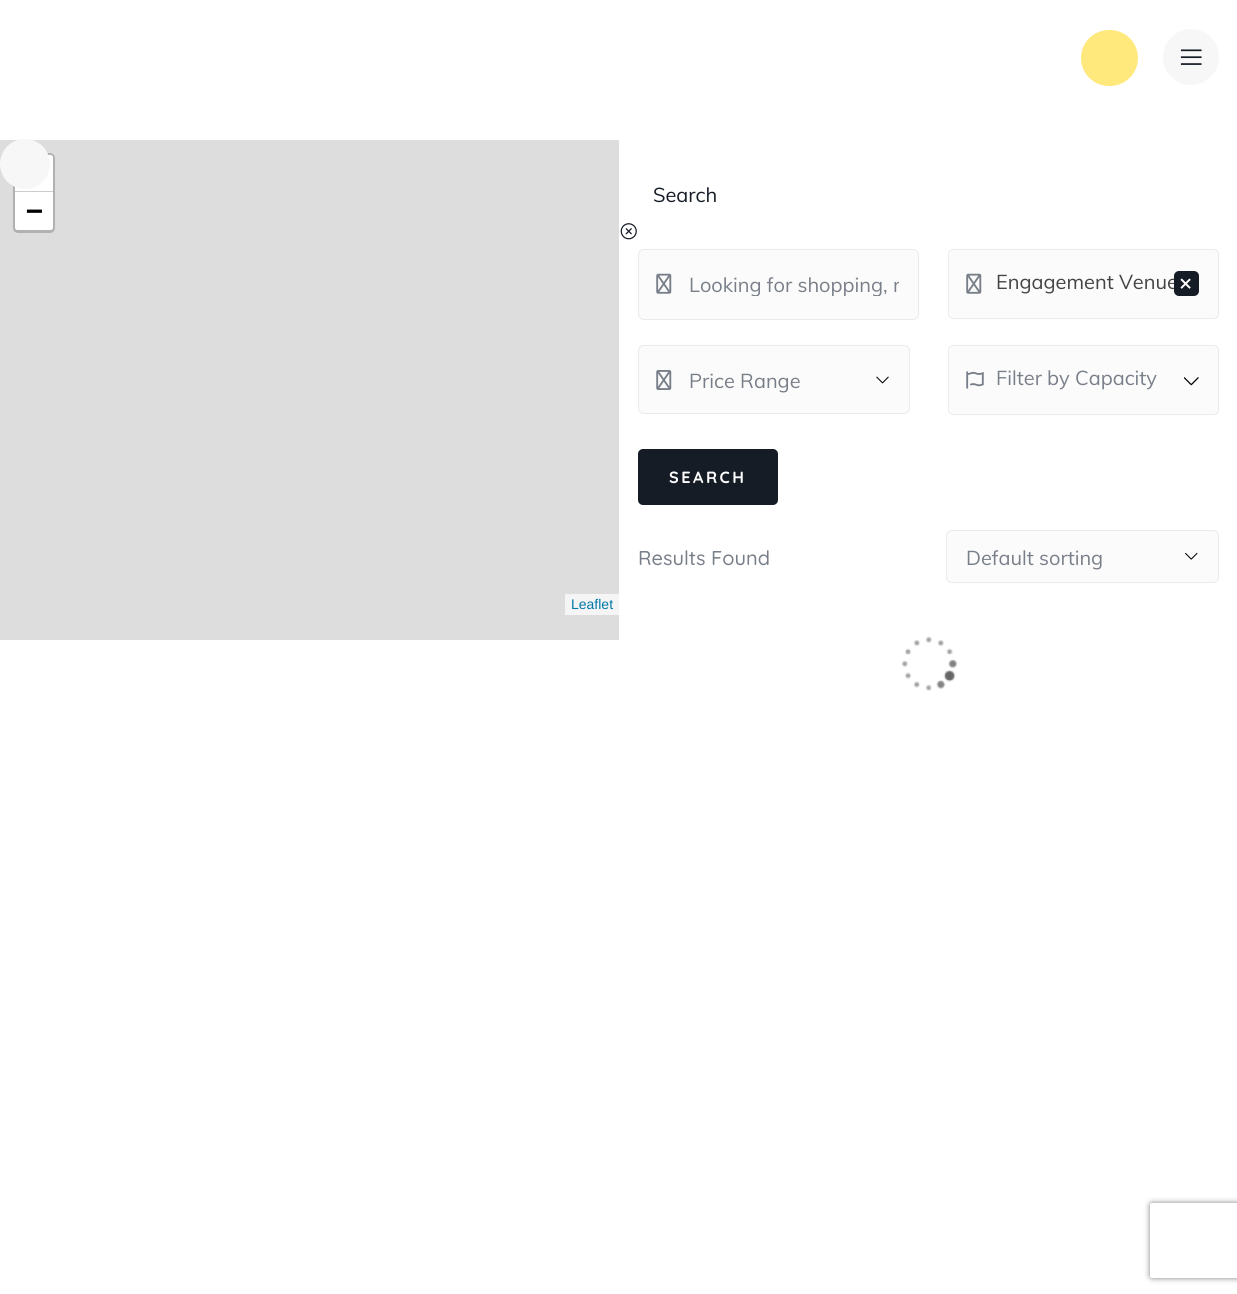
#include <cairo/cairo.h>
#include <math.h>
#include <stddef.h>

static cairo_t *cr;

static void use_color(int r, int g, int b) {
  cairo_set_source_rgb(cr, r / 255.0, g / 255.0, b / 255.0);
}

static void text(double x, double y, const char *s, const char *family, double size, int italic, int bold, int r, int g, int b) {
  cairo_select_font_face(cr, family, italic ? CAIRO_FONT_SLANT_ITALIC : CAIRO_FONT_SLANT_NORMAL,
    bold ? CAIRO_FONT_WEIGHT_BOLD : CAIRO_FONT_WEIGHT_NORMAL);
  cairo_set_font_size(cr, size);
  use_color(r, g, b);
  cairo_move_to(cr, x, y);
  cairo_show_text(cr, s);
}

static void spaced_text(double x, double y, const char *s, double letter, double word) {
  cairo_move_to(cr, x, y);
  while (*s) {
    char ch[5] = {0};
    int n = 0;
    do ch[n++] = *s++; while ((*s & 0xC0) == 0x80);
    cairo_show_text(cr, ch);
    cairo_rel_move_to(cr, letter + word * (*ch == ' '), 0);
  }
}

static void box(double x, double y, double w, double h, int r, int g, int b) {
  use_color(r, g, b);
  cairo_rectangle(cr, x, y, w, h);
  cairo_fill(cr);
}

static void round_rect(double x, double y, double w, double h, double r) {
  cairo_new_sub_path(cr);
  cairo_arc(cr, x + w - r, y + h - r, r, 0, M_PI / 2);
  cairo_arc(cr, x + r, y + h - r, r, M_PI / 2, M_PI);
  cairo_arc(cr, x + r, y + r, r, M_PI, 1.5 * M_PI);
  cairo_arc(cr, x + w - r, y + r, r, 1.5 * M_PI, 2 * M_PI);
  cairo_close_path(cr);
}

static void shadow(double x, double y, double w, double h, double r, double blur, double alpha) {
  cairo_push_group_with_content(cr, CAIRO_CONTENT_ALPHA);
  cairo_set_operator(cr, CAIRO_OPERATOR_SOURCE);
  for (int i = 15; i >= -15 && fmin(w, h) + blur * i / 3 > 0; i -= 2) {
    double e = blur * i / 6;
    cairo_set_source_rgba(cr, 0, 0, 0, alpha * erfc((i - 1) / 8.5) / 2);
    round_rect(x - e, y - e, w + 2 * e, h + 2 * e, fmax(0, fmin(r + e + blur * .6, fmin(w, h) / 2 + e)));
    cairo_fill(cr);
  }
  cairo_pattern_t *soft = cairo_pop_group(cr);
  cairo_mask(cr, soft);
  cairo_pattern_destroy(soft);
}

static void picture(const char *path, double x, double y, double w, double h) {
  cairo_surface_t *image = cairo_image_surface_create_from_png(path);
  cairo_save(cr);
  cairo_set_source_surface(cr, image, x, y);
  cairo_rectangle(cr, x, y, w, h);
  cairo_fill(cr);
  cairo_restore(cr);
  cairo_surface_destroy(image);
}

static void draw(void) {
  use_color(255, 255, 255);
  cairo_paint(cr);
  use_color(255, 232, 124);
  round_rect(1081, 30, 57, 56, 28);
  cairo_fill(cr);
  use_color(247, 247, 247);
  cairo_arc(cr, 1191, 57, 28, 0, 2 * M_PI);
  cairo_fill(cr);
  picture("img_01.png", 1180, 49, 22, 16);
  box(0, 140, 619, 500, 221, 221, 221);
  round_rect(14.5, 154.5, 39, 77, 3.5);
  use_color(177, 177, 177);
  cairo_set_line_width(cr, 3);
  cairo_stroke(cr);
  use_color(255, 255, 255);
  cairo_new_path(cr);
  cairo_move_to(cr, 17.5, 155);
  cairo_line_to(cr, 50.5, 155);
  cairo_curve_to(cr, 52, 155, 53, 156, 53, 157.5);
  cairo_line_to(cr, 53, 193);
  cairo_line_to(cr, 15, 193);
  cairo_line_to(cr, 15, 157.5);
  cairo_curve_to(cr, 15, 156, 16, 155, 17.5, 155);
  cairo_close_path(cr);
  cairo_fill(cr);
  use_color(247, 247, 247);
  cairo_arc(cr, 25, 164, 25, 0, 2 * M_PI);
  cairo_fill(cr);
  box(15, 191, 38, 1, 204, 204, 204);
  use_color(255, 255, 255);
  cairo_new_path(cr);
  cairo_move_to(cr, 15, 193);
  cairo_line_to(cr, 53, 193);
  cairo_line_to(cr, 53, 227.5);
  cairo_curve_to(cr, 53, 229, 52, 230, 50.5, 230);
  cairo_line_to(cr, 17.5, 230);
  cairo_curve_to(cr, 16, 230, 15, 229, 15, 227.5);
  cairo_close_path(cr);
  cairo_fill(cr);
  box(565, 594, 54, 21, 245, 245, 245);
  picture("img_02.png", 620, 223, 17, 17);
  use_color(251, 251, 251);
  round_rect(638.5, 249.5, 280, 70, 5.5);
  cairo_fill_preserve(cr);
  use_color(232, 235, 236);
  cairo_set_line_width(cr, 1);
  cairo_stroke(cr);
  picture("img_03.png", 656, 273, 16, 21);
  use_color(251, 251, 251);
  round_rect(948.5, 249.5, 270, 69, 4.5);
  cairo_fill_preserve(cr);
  use_color(232, 235, 236);
  cairo_stroke(cr);
  picture("img_03.png", 966, 273, 16, 21);
  use_color(251, 251, 251);
  round_rect(638, 345, 272, 69, 6);
  cairo_fill(cr);
  picture("img_05.png", 876, 376, 13, 8);
  round_rect(638.5, 345.5, 271, 68, 5.5);
  use_color(232, 235, 236);
  cairo_stroke(cr);
  picture("img_04.png", 656, 370, 16, 20);
  use_color(251, 251, 251);
  round_rect(948.5, 345.5, 270, 69, 4.5);
  cairo_fill_preserve(cr);
  use_color(232, 235, 236);
  cairo_stroke(cr);
  picture("img_06.png", 966, 371, 18, 18);
  picture("img_07.png", 1184, 377, 15, 9);
  use_color(22, 28, 38);
  round_rect(638, 449, 140, 56, 5);
  cairo_fill(cr);
  use_color(251, 251, 251);
  round_rect(946, 530, 273, 53, 6);
  cairo_fill(cr);
  picture("img_08.png", 1185, 552, 13, 8);
  round_rect(946.5, 530.5, 272, 52, 5.5);
  use_color(232, 235, 236);
  cairo_stroke(cr);
  picture("img_09.png", 901, 636, 57, 56);
  cairo_save(cr);
  cairo_set_fill_rule(cr, CAIRO_FILL_RULE_EVEN_ODD);
  cairo_new_path(cr);
  cairo_move_to(cr, 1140, 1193);
  cairo_line_to(cr, 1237, 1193);
  cairo_line_to(cr, 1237, 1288);
  cairo_line_to(cr, 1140, 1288);
  cairo_close_path(cr);
  cairo_move_to(cr, 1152.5, 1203);
  cairo_line_to(cr, 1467.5, 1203);
  cairo_curve_to(cr, 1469, 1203, 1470, 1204, 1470, 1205.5);
  cairo_line_to(cr, 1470, 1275.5);
  cairo_curve_to(cr, 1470, 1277, 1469, 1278, 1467.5, 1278);
  cairo_line_to(cr, 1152.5, 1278);
  cairo_curve_to(cr, 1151, 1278, 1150, 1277, 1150, 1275.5);
  cairo_line_to(cr, 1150, 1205.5);
  cairo_curve_to(cr, 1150, 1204, 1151, 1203, 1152.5, 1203);
  cairo_close_path(cr);
  cairo_clip(cr);
  use_color(128, 128, 128);
  shadow(1150, 1203, 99, 75, 2.5, 3, 1);
  cairo_restore(cr);
  text(26, 220, "−", "DejaVu Sans Mono", 28, 0, 1, 0, 0, 0);
  text(571, 609, "Leaflet", "Liberation Sans", 14, 0, 0, 0, 120, 168);
  text(653, 202, "Search", "Muli", 20, 0, 0, 22, 28, 38);
  cairo_save(cr);
  cairo_rectangle(cr, 689, 271, 210, 25);
  cairo_clip(cr);
  text(689, 292, "Looking for shopping, r", "Muli", 20, 0, 0, 121, 127, 137);
  cairo_restore(cr);
  text(996, 289, "Engagement Venue", "Muli", 20, 0, 0, 68, 68, 68);
  use_color(22, 28, 38);
  round_rect(1174, 271, 25, 25, 5);
  cairo_fill(cr);
  text(1179, 290, "×", "Muli", 22, 0, 1, 255, 255, 255);
  text(689, 388, "Price Range", "Muli", 20, 0, 0, 121, 127, 137);
  text(996, 385, "Filter by Capacity", "Muli", 20, 0, 0, 121, 127, 137);
  cairo_select_font_face(cr, "Quicksand", CAIRO_FONT_SLANT_NORMAL, CAIRO_FONT_WEIGHT_BOLD);
  cairo_set_font_size(cr, 16.25);
  use_color(255, 255, 255);
  spaced_text(669, 483, "SEARCH", 2.5, 0);
  text(638, 565, "Results Found", "Quicksand Medium", 20, 0, 0, 121, 127, 137);
  text(966, 565, "Default sorting", "Muli", 20, 0, 0, 121, 127, 137);
}

int main(void) {
  cairo_surface_t *surface = cairo_image_surface_create(CAIRO_FORMAT_RGB24, 1237, 1294);
  cr = cairo_create(surface);
  cairo_font_options_t *options = cairo_font_options_create();
  cairo_font_options_set_hint_metrics(options, CAIRO_HINT_METRICS_OFF);
  cairo_font_options_set_hint_style(options, CAIRO_HINT_STYLE_NONE);
  cairo_set_font_options(cr, options);
  cairo_set_miter_limit(cr, 4);
  draw();
  cairo_surface_write_to_png(surface, "out.png");
  cairo_font_options_destroy(options);
  cairo_destroy(cr);
  cairo_surface_destroy(surface);
  return 0;
}
